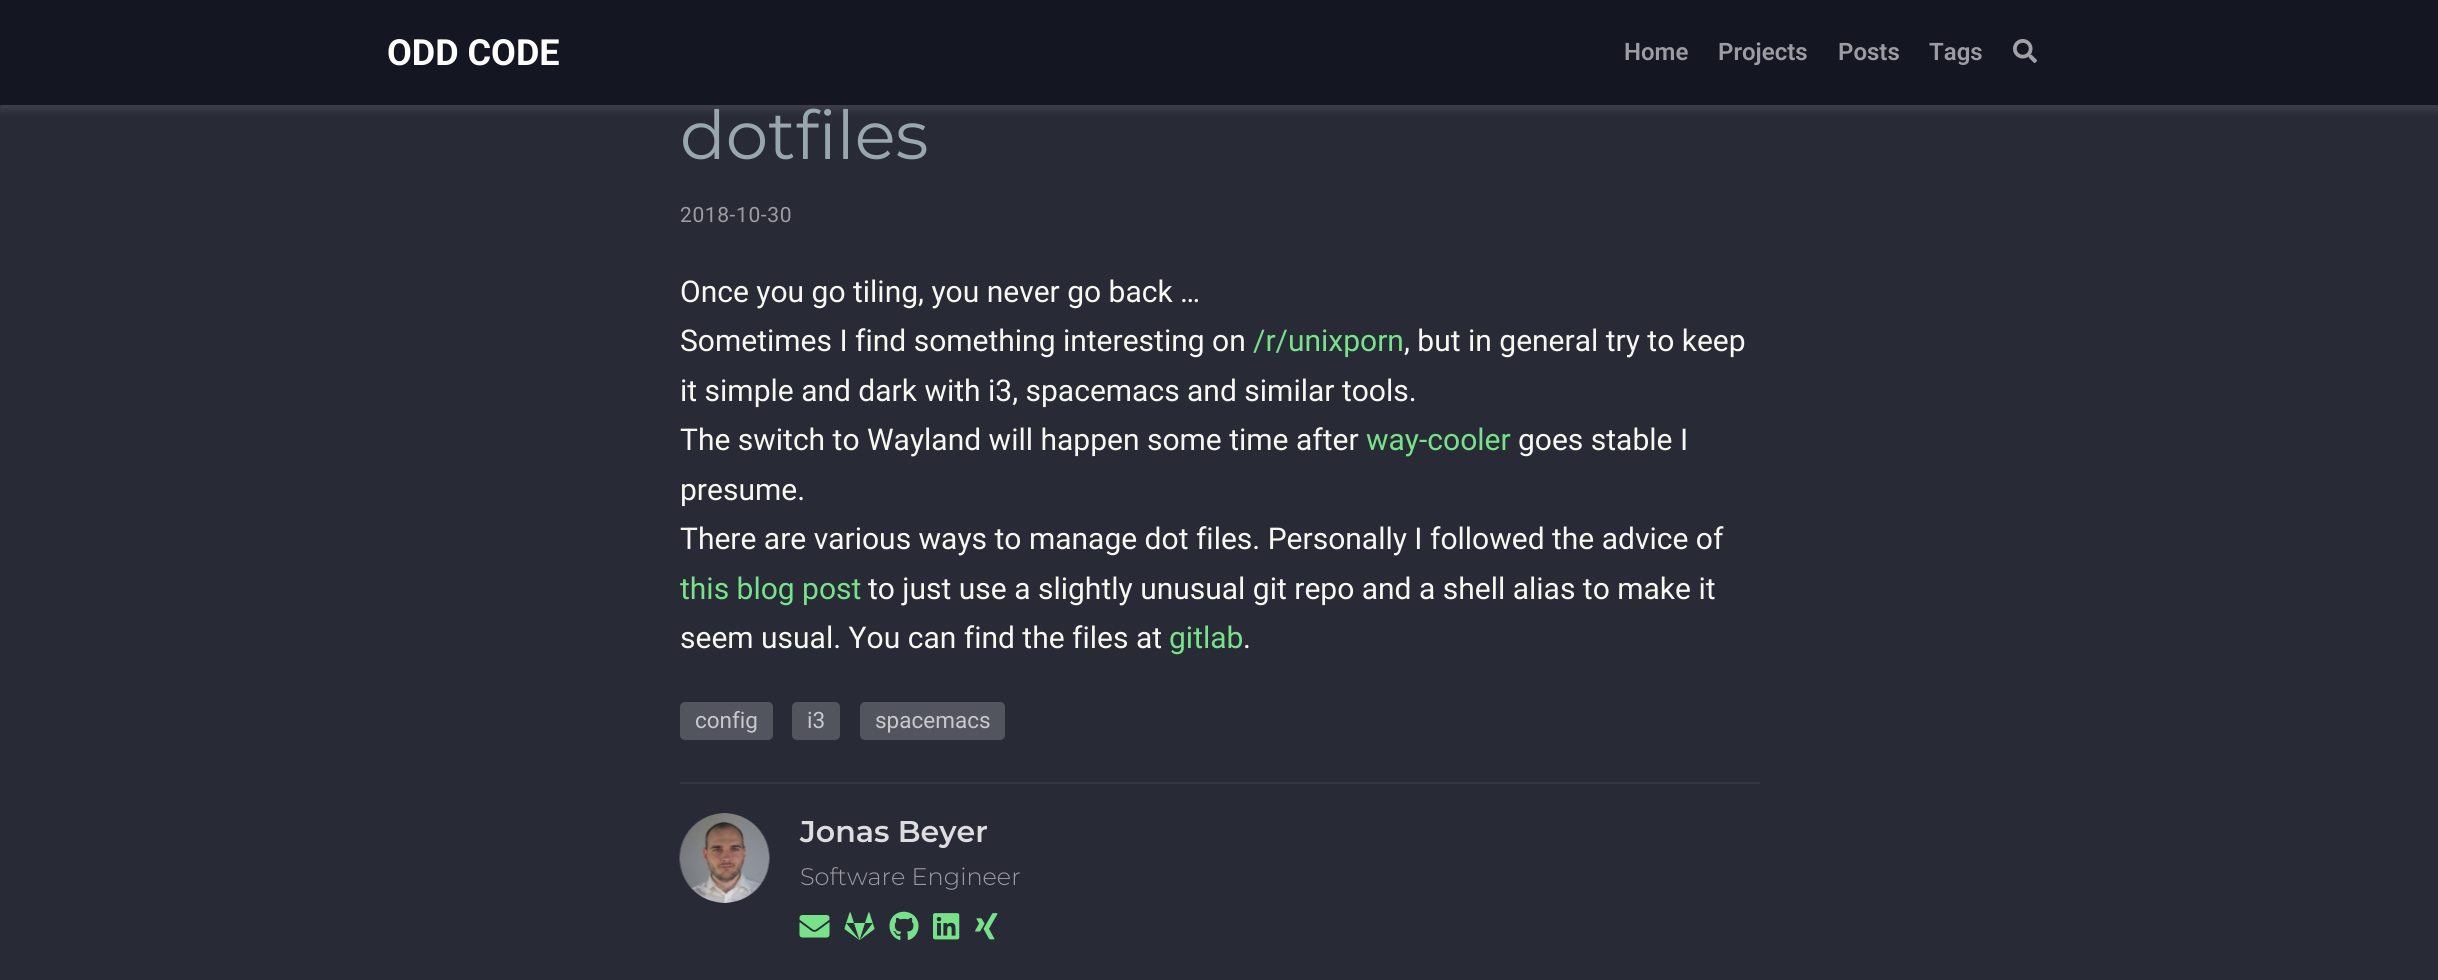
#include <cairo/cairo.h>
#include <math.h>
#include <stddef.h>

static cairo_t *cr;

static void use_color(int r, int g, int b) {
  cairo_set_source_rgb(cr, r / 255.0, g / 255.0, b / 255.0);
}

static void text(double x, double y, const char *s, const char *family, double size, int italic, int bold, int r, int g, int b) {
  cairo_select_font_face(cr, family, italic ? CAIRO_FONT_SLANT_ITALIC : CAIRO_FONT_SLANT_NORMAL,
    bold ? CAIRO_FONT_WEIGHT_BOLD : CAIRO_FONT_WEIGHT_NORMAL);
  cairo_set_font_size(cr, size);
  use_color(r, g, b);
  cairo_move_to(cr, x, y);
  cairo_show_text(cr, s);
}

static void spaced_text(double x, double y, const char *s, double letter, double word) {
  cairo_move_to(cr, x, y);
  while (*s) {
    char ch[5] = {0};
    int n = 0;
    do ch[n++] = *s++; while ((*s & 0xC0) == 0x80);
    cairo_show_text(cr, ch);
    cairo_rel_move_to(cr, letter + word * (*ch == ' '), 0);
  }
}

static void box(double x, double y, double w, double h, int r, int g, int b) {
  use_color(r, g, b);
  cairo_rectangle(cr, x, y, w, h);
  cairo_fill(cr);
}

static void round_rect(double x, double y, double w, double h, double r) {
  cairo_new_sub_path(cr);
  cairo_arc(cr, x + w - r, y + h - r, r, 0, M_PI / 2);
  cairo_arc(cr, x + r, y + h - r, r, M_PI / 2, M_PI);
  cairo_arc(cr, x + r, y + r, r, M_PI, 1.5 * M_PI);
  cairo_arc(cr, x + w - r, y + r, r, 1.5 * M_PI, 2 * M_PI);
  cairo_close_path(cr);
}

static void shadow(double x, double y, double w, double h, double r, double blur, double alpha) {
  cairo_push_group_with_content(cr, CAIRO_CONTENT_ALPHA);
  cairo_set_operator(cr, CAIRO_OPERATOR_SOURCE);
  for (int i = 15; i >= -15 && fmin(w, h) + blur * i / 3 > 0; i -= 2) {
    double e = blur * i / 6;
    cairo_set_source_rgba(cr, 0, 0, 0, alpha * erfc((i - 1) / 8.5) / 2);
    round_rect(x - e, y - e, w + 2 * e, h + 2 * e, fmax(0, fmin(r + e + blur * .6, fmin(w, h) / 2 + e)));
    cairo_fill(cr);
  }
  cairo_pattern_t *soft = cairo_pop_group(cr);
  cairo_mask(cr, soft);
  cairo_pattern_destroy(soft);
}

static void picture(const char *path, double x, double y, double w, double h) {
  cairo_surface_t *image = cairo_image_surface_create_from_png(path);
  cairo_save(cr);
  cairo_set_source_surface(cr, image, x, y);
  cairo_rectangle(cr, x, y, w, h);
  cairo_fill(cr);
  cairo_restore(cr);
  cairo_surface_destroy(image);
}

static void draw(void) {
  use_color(40, 42, 54);
  cairo_paint(cr);
  use_color(255, 255, 255);
  shadow(0, 5, 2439, 105, 0, 4, 0.11);
  box(0, 0, 2438, 105, 20, 22, 34);
  picture("img_01.png", 2013, 39, 24, 24);
  use_color(83, 85, 94);
  round_rect(680, 702, 93, 38, 5);
  cairo_fill(cr);
  round_rect(792, 702, 48, 38, 5);
  cairo_fill(cr);
  round_rect(860, 702, 145, 38, 5);
  cairo_fill(cr);
  box(680, 782, 1080, 2, 51, 53, 64);
  picture("img_02.png", 679, 813, 91, 90);
  picture("img_03.png", 799, 915, 31, 23);
  picture("img_04.png", 844, 912, 31, 29);
  picture("img_05.png", 889, 911, 30, 29);
  picture("img_06.png", 933, 913, 27, 27);
  picture("img_07.png", 975, 913, 23, 27);
  text(387, 65, "ODD CODE", "Roboto", 36, 0, 1, 255, 255, 255);
  text(1624, 60, "Home", "Roboto SemiBold", 24, 0, 0, 156, 157, 163);
  text(1718, 60, "Projects", "Roboto SemiBold", 24, 0, 0, 156, 157, 163);
  text(1838, 60, "Posts", "Roboto SemiBold", 24, 0, 0, 156, 157, 163);
  text(1929, 60, "Tags", "Roboto SemiBold", 24, 0, 0, 156, 157, 163);
  text(680, 159, "dotfiles", "Montserrat", 67.5, 0, 0, 152, 166, 173);
  cairo_select_font_face(cr, "Roboto", CAIRO_FONT_SLANT_NORMAL, CAIRO_FONT_WEIGHT_NORMAL);
  cairo_set_font_size(cr, 21);
  use_color(156, 157, 163);
  spaced_text(680, 222, "2018-10-30", 0.6, 0);
  text(680, 302, "Once you go tiling, you never go back …", "Roboto", 30, 0, 0, 248, 248, 242);
  text(680, 351, "Sometimes I find something interesting on", "Roboto", 30, 0, 0, 248, 248, 242);
  text(1253, 351, "/r/unixporn", "Roboto", 30, 0, 0, 120, 226, 138);
  text(1404, 351, ", but in general try to keep", "Roboto", 30, 0, 0, 248, 248, 242);
  text(680, 401, "it simple and dark with i3, spacemacs and similar tools.", "Roboto", 30, 0, 0, 248, 248, 242);
  text(680, 450, "The switch to Wayland will happen some time after", "Roboto", 30, 0, 0, 248, 248, 242);
  text(1366, 450, "way-cooler", "Roboto", 30, 0, 0, 120, 226, 138);
  text(1518, 450, "goes stable I", "Roboto", 30, 0, 0, 248, 248, 242);
  text(680, 500, "presume.", "Roboto", 30, 0, 0, 248, 248, 242);
  text(680, 549, "There are various ways to manage dot files. Personally I followed the advice of", "Roboto", 30, 0, 0, 248, 248, 242);
  text(680, 599, "this blog post", "Roboto", 30, 0, 0, 120, 226, 138);
  text(868, 599, "to just use a slightly unusual git repo and a shell alias to make it", "Roboto", 30, 0, 0, 248, 248, 242);
  text(680, 648, "seem usual. You can find the files at", "Roboto", 30, 0, 0, 248, 248, 242);
  text(1169, 648, "gitlab", "Roboto", 30, 0, 0, 120, 226, 138);
  text(1243, 648, ".", "Roboto", 30, 0, 0, 248, 248, 242);
  text(695, 728, "config", "Roboto", 22.5, 0, 0, 200, 201, 203);
  text(807, 728, "i3", "Roboto", 22.5, 0, 0, 200, 201, 203);
  text(875, 728, "spacemacs", "Roboto", 22.5, 0, 0, 200, 201, 203);
  text(800, 842, "Jonas Beyer", "Montserrat SemiBold", 30, 0, 0, 221, 221, 223);
  text(800, 885, "Software Engineer", "Montserrat Light", 24, 0, 0, 156, 157, 163);
}

int main(void) {
  cairo_surface_t *surface = cairo_image_surface_create(CAIRO_FORMAT_RGB24, 2438, 980);
  cr = cairo_create(surface);
  cairo_font_options_t *options = cairo_font_options_create();
  cairo_font_options_set_hint_metrics(options, CAIRO_HINT_METRICS_OFF);
  cairo_font_options_set_hint_style(options, CAIRO_HINT_STYLE_NONE);
  cairo_set_font_options(cr, options);
  cairo_set_miter_limit(cr, 4);
  draw();
  cairo_surface_write_to_png(surface, "out.png");
  cairo_font_options_destroy(options);
  cairo_destroy(cr);
  cairo_surface_destroy(surface);
  return 0;
}
